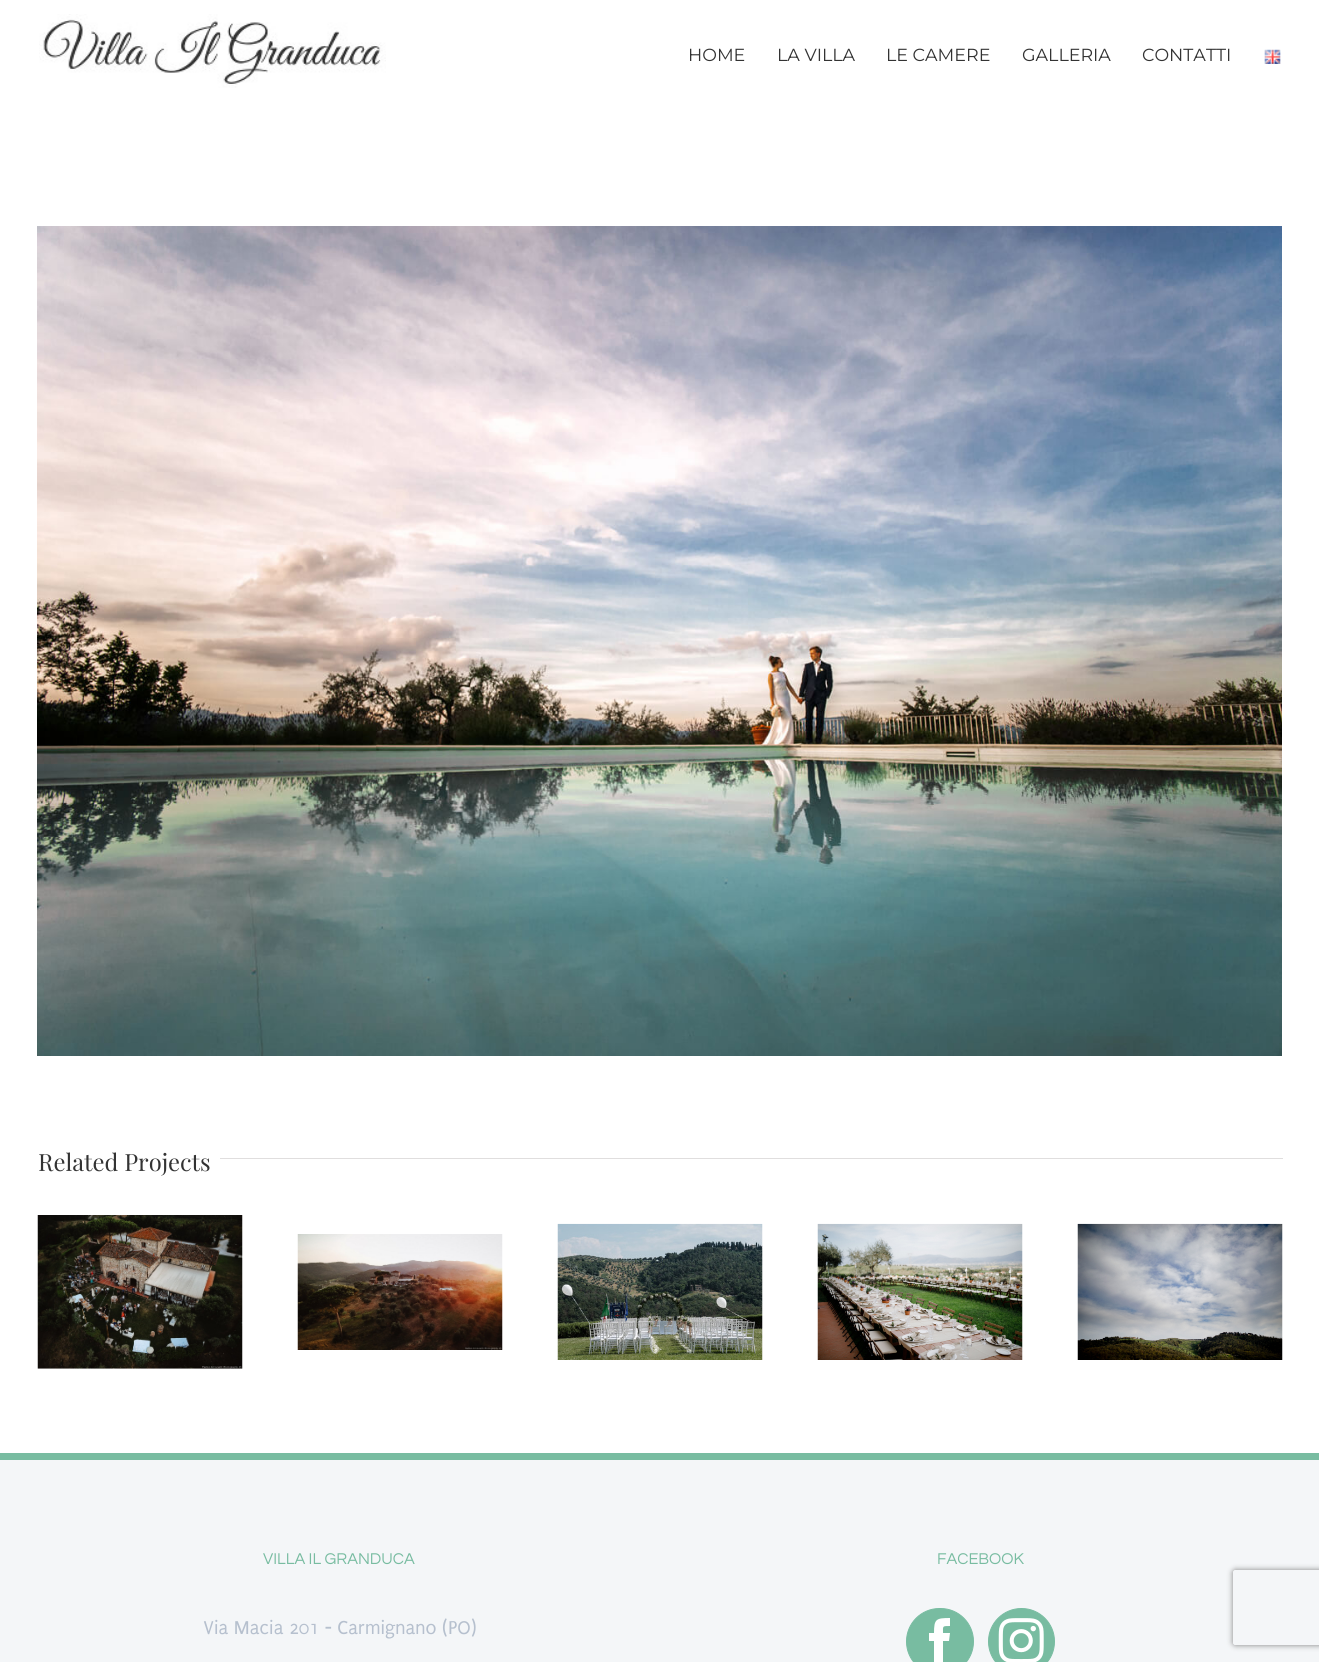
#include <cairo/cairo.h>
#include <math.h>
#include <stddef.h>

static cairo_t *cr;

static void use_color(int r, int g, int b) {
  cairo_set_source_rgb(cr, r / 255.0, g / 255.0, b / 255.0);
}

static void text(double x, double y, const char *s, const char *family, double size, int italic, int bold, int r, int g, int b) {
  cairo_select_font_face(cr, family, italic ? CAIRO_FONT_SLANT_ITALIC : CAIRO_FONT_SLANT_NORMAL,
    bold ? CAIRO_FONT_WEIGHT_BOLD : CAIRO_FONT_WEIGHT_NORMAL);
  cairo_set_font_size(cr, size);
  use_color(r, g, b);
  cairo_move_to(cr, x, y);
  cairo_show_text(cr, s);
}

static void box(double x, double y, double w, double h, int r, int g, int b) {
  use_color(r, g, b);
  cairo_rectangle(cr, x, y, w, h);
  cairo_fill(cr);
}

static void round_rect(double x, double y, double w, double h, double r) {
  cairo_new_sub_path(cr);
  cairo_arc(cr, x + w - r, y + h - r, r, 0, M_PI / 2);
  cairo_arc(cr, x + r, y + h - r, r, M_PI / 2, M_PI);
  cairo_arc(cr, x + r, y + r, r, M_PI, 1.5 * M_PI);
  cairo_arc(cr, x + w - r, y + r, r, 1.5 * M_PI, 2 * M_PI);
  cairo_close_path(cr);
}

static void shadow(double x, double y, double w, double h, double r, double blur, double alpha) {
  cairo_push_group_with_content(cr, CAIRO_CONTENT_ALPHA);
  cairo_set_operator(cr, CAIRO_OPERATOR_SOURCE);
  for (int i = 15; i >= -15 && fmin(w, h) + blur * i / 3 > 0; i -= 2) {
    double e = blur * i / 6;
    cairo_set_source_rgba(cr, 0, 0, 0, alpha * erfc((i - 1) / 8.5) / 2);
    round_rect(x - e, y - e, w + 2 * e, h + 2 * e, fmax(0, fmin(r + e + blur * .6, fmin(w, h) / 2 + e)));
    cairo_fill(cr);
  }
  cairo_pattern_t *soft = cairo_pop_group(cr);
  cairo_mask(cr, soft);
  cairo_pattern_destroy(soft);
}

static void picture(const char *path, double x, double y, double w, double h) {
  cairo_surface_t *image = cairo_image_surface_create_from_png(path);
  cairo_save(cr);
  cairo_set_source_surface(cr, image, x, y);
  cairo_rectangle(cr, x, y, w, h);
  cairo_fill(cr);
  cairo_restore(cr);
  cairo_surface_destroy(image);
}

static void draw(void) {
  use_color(255, 255, 255);
  cairo_paint(cr);
  picture("img_01.png", 39, 14, 347, 74);
  picture("img_02.png", 1264, 49, 17, 15);
  picture("img_03.png", 37, 226, 1245, 830);
  box(220, 1158, 1063, 1, 224, 222, 222);
  picture("img_04.png", 37, 1215, 206, 154);
  picture("img_05.png", 297, 1234, 206, 116);
  picture("img_06.png", 557, 1223, 206, 137);
  picture("img_07.png", 817, 1223, 206, 137);
  picture("img_08.png", 1077, 1223, 206, 137);
  box(0, 1460, 1319, 202, 244, 246, 248);
  box(0, 1453, 1319, 7, 120, 188, 161);
  round_rect(906.5, 1608.5, 67, 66, 33);
  cairo_fill_preserve(cr);
  cairo_set_line_width(cr, 1);
  cairo_stroke(cr);
  use_color(255, 255, 255);
  cairo_new_path(cr);
  cairo_move_to(cr, 943, 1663);
  cairo_line_to(cr, 934, 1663);
  cairo_line_to(cr, 934, 1641);
  cairo_line_to(cr, 929, 1641);
  cairo_line_to(cr, 929, 1633);
  cairo_line_to(cr, 934, 1633);
  cairo_curve_to(cr, 934, 1619, 936, 1618, 950, 1618);
  cairo_line_to(cr, 950, 1626);
  cairo_curve_to(cr, 942, 1626, 943, 1626, 943, 1633);
  cairo_line_to(cr, 950, 1633);
  cairo_line_to(cr, 949, 1641);
  cairo_line_to(cr, 943, 1641);
  cairo_close_path(cr);
  cairo_fill(cr);
  use_color(120, 188, 161);
  cairo_arc(cr, 1021.5, 1641.5, 33, 0, 2 * M_PI);
  cairo_fill_preserve(cr);
  cairo_stroke(cr);
  picture("img_09.png", 998, 1618, 46, 44);
  cairo_save(cr);
  cairo_set_fill_rule(cr, CAIRO_FILL_RULE_EVEN_ODD);
  cairo_new_path(cr);
  cairo_move_to(cr, 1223, 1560);
  cairo_line_to(cr, 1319, 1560);
  cairo_line_to(cr, 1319, 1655);
  cairo_line_to(cr, 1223, 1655);
  cairo_close_path(cr);
  cairo_move_to(cr, 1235.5, 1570);
  cairo_line_to(cr, 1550.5, 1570);
  cairo_curve_to(cr, 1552, 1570, 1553, 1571, 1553, 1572.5);
  cairo_line_to(cr, 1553, 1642.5);
  cairo_curve_to(cr, 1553, 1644, 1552, 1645, 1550.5, 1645);
  cairo_line_to(cr, 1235.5, 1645);
  cairo_curve_to(cr, 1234, 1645, 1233, 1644, 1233, 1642.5);
  cairo_line_to(cr, 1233, 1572.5);
  cairo_curve_to(cr, 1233, 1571, 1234, 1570, 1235.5, 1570);
  cairo_close_path(cr);
  cairo_clip(cr);
  use_color(128, 128, 128);
  shadow(1233, 1570, 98, 75, 2.5, 3, 1);
  cairo_restore(cr);
  text(688, 61, "HOME", "Montserrat Thin", 17.5, 0, 0, 51, 51, 51);
  text(777, 61, "LA VILLA", "Montserrat Thin", 17.5, 0, 0, 51, 51, 51);
  text(886, 61, "LE CAMERE", "Montserrat Thin", 17.5, 0, 0, 51, 51, 51);
  text(1022, 61, "GALLERIA", "Montserrat Thin", 17.5, 0, 0, 51, 51, 51);
  text(1142, 61, "CONTATTI", "Montserrat Thin", 17.5, 0, 0, 51, 51, 51);
  text(38, 1171, "Related Projects", "Playfair Display", 23.75, 0, 0, 51, 51, 51);
  text(263, 1564, "VILLA IL GRANDUCA", "Questrial", 16.25, 0, 0, 120, 188, 161);
  text(203, 1634, "Via Macia 201 - Carmignano (PO)", "Puritan", 20, 0, 0, 182, 192, 206);
  text(937, 1564, "FACEBOOK", "Questrial", 16.25, 0, 0, 120, 188, 161);
}

int main(void) {
  cairo_surface_t *surface = cairo_image_surface_create(CAIRO_FORMAT_RGB24, 1319, 1662);
  cr = cairo_create(surface);
  cairo_font_options_t *options = cairo_font_options_create();
  cairo_font_options_set_hint_metrics(options, CAIRO_HINT_METRICS_OFF);
  cairo_font_options_set_hint_style(options, CAIRO_HINT_STYLE_NONE);
  cairo_set_font_options(cr, options);
  cairo_set_miter_limit(cr, 4);
  draw();
  cairo_surface_write_to_png(surface, "out.png");
  cairo_font_options_destroy(options);
  cairo_destroy(cr);
  cairo_surface_destroy(surface);
  return 0;
}
